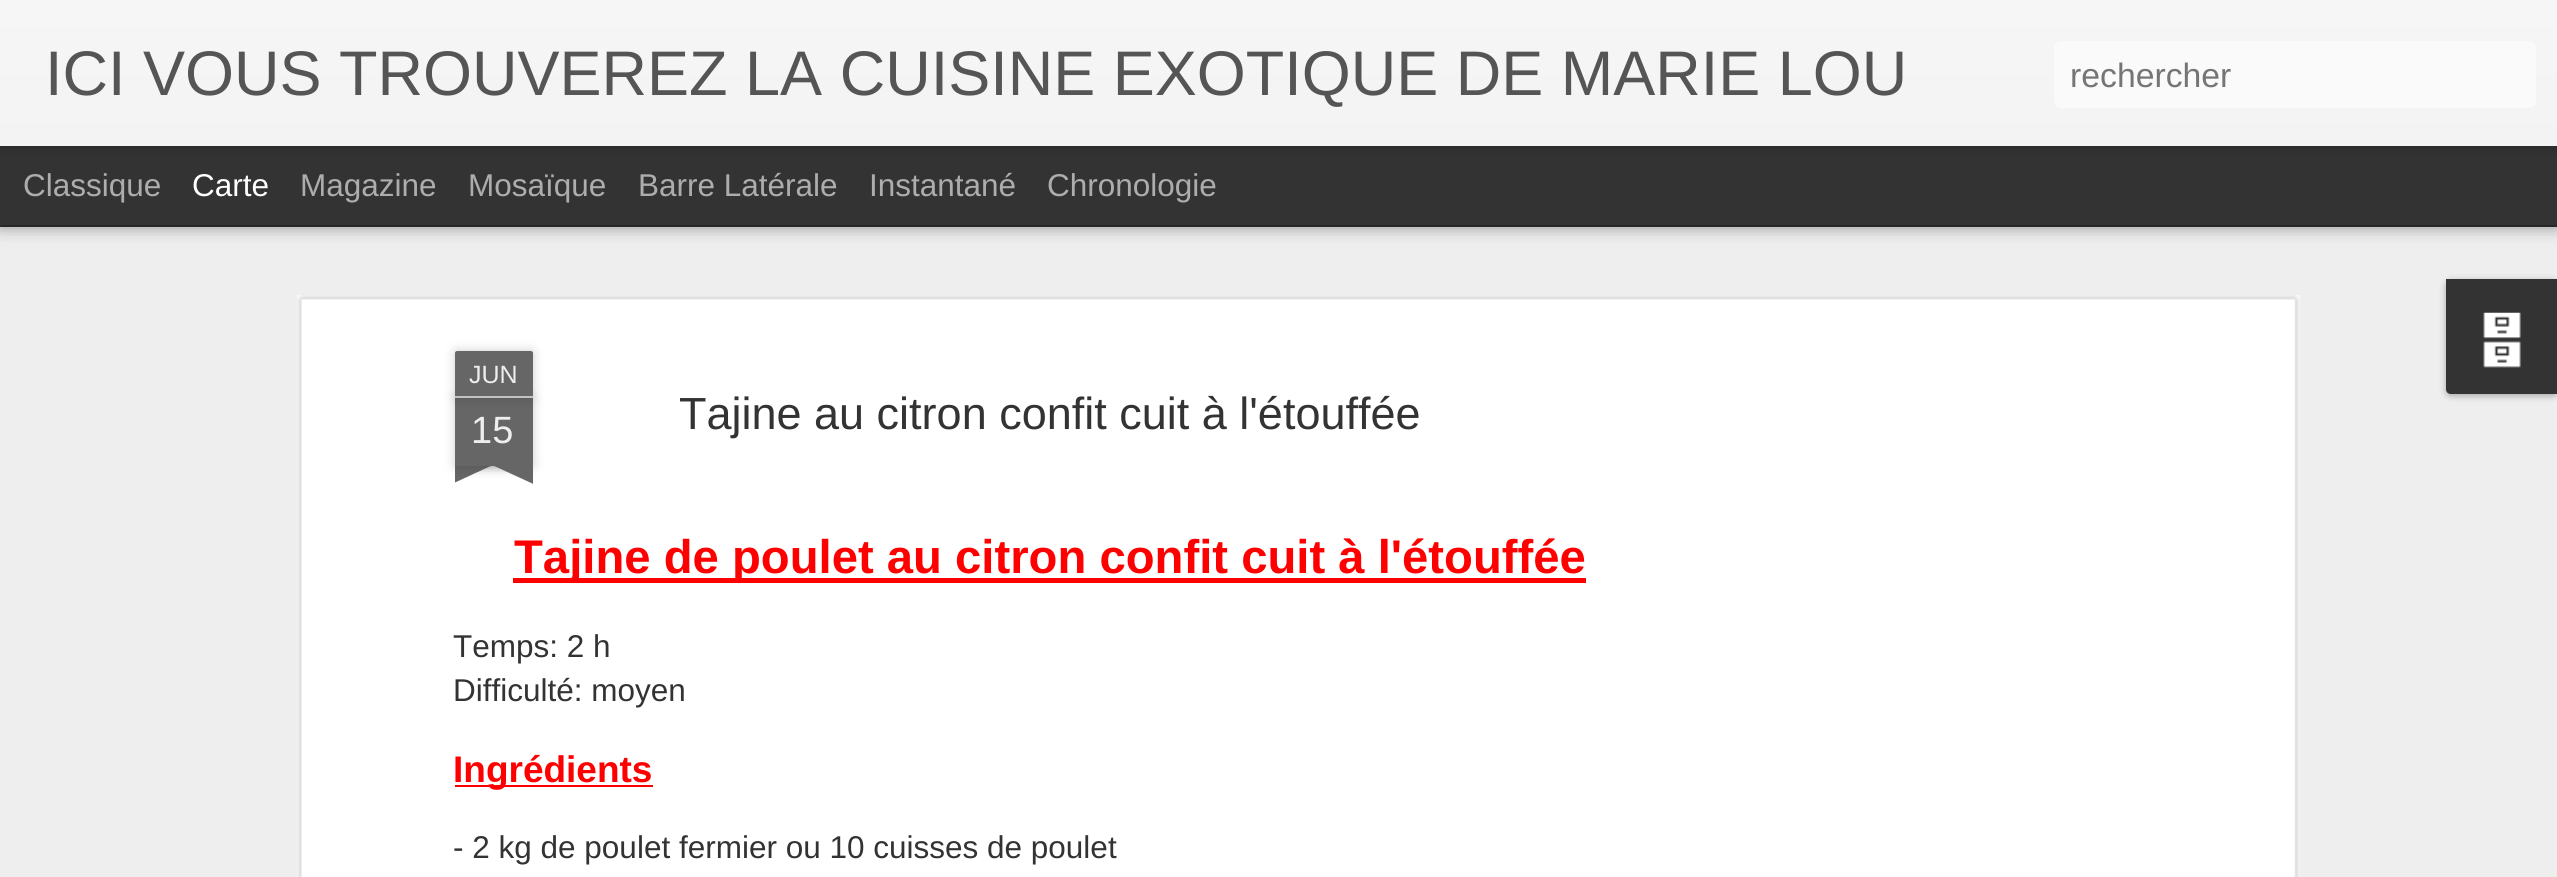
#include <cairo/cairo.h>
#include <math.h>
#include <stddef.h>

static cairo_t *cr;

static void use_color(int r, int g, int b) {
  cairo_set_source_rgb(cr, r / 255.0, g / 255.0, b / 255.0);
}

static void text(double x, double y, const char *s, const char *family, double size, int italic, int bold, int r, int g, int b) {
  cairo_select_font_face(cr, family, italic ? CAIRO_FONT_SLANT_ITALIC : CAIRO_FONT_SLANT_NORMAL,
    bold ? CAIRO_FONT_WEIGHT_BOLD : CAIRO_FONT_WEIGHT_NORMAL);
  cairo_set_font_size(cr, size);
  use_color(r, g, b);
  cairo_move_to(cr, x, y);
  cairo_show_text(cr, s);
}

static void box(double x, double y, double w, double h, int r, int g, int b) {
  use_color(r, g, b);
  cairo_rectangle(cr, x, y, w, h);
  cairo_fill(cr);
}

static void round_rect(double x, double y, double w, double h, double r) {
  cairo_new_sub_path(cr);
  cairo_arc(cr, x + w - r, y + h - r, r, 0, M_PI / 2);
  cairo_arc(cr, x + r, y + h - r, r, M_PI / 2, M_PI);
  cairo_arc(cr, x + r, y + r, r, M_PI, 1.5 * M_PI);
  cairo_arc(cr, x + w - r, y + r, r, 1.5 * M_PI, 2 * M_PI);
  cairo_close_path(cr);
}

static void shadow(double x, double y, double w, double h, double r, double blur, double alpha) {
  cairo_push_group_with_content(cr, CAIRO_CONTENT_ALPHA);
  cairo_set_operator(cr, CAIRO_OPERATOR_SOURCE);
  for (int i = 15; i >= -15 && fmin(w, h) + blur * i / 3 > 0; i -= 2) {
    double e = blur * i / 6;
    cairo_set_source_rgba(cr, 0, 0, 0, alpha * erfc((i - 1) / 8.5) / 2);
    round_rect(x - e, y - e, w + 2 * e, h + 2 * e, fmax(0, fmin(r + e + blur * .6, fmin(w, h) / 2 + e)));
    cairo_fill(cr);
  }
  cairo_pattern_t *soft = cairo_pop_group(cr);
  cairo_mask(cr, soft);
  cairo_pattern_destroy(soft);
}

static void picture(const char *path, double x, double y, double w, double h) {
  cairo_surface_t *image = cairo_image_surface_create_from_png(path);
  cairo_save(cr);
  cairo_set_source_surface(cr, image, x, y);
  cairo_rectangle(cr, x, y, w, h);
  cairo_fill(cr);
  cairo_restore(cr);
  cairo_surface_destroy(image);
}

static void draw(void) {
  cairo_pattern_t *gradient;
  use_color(51, 51, 51);
  cairo_paint(cr);
  box(0, 227, 2557, 650, 238, 238, 238);
  use_color(0, 0, 0);
  shadow(0, 146, 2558, 79, 0, 9, 0.5);
  box(0, 146, 2557, 79, 51, 51, 51);
  use_color(0, 0, 0);
  shadow(0, 0, 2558, 146, 0, 5.5, 0.3);
  gradient = cairo_pattern_create_linear(0, 0, 0, 146);
  cairo_pattern_add_color_stop_rgba(gradient, 0, 0.965, 0.965, 0.965, 1);
  cairo_pattern_add_color_stop_rgba(gradient, 1, 0.953, 0.953, 0.953, 1);
  cairo_set_source(cr, gradient);
  cairo_pattern_destroy(gradient);
  cairo_rectangle(cr, 0, 0, 2557, 146);
  cairo_fill(cr);
  use_color(250, 250, 250);
  round_rect(2054, 41, 482, 67, 7);
  cairo_fill(cr);
  use_color(0, 0, 0);
  shadow(2446, 281, 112, 115, 5, 3.5, 0.3);
  use_color(51, 51, 51);
  cairo_new_path(cr);
  cairo_move_to(cr, 2446, 279);
  cairo_line_to(cr, 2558, 279);
  cairo_line_to(cr, 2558, 394);
  cairo_line_to(cr, 2451, 394);
  cairo_curve_to(cr, 2448, 394, 2446, 392, 2446, 389);
  cairo_close_path(cr);
  cairo_fill(cr);
  picture("img_01.png", 2483, 312, 38, 56);
  box(297, 295, 2003, 582, 255, 255, 255);
  picture("img_02.png", 297, 295, 2003, 582);
  use_color(0, 0, 0);
  shadow(455, 398, 78, 68, 0, 5.5, 0.2);
  box(455, 398, 78, 68, 102, 102, 102);
  use_color(0, 0, 0);
  shadow(455, 351, 78, 47, 2, 5.5, 0.2);
  use_color(102, 102, 102);
  cairo_new_path(cr);
  cairo_move_to(cr, 457, 351);
  cairo_line_to(cr, 531, 351);
  cairo_curve_to(cr, 532, 351, 533, 352, 533, 353);
  cairo_line_to(cr, 533, 398);
  cairo_line_to(cr, 455, 398);
  cairo_line_to(cr, 455, 353);
  cairo_curve_to(cr, 455, 352, 456, 351, 457, 351);
  cairo_close_path(cr);
  cairo_fill(cr);
  box(455, 396, 78, 2, 194, 194, 194);
  cairo_save(cr);
  cairo_rectangle(cr, 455, 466, 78, 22);
  cairo_clip(cr);
  use_color(0, 0, 0);
  shadow(434, 443, 113, 23, 0, 5.5, 0.2);
  cairo_restore(cr);
  cairo_save(cr);
  cairo_rectangle(cr, 455, 466, 78, 22);
  cairo_clip(cr);
  use_color(102, 102, 102);
  cairo_new_path(cr);
  cairo_move_to(cr, 434, 468);
  cairo_line_to(cr, 536, 421);
  cairo_line_to(cr, 545, 441);
  cairo_line_to(cr, 443, 488);
  cairo_close_path(cr);
  cairo_fill(cr);
  cairo_restore(cr);
  cairo_save(cr);
  cairo_rectangle(cr, 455, 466, 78, 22);
  cairo_clip(cr);
  use_color(0, 0, 0);
  shadow(441, 443, 113, 23, 0, 5.5, 0.2);
  cairo_restore(cr);
  cairo_save(cr);
  cairo_rectangle(cr, 455, 466, 78, 22);
  cairo_clip(cr);
  use_color(102, 102, 102);
  cairo_new_path(cr);
  cairo_move_to(cr, 450, 421);
  cairo_line_to(cr, 552, 468);
  cairo_line_to(cr, 542, 488);
  cairo_line_to(cr, 440, 441);
  cairo_close_path(cr);
  cairo_fill(cr);
  cairo_restore(cr);
  box(513, 578, 1073, 5, 255, 0, 0);
  box(455, 785, 198, 2, 255, 0, 0);
  text(45, 95, "ICI VOUS TROUVEREZ LA CUISINE EXOTIQUE DE MARIE LOU", "Liberation Sans", 63, 0, 0, 85, 85, 85);
  text(2070, 87, "rechercher", "Liberation Sans", 33.75, 0, 0, 117, 117, 117);
  text(23, 196, "Classique", "Liberation Sans", 31.5, 0, 0, 173, 173, 173);
  text(192, 196, "Carte", "Liberation Sans", 31.5, 0, 0, 255, 255, 255);
  text(300, 196, "Magazine", "Liberation Sans", 31.5, 0, 0, 173, 173, 173);
  text(468, 196, "Mosaïque", "Liberation Sans", 31.5, 0, 0, 173, 173, 173);
  text(638, 196, "Barre Latérale", "Liberation Sans", 31.5, 0, 0, 173, 173, 173);
  text(869, 196, "Instantané", "Liberation Sans", 31.5, 0, 0, 173, 173, 173);
  text(1047, 196, "Chronologie", "Liberation Sans", 31.5, 0, 0, 173, 173, 173);
  text(469, 383, "JUN", "Liberation Sans", 25, 0, 0, 238, 238, 238);
  text(471, 443, "15", "Liberation Sans", 38, 0, 0, 238, 238, 238);
  text(679, 429, "Tajine au citron confit cuit à l'étouffée", "Liberation Sans", 45, 0, 0, 51, 51, 51);
  text(514, 573, "Tajine de poulet au citron confit cuit à l'étouffée", "Liberation Sans", 47.25, 0, 1, 255, 0, 0);
  text(453, 657, "Temps: 2 h", "Liberation Sans", 31.5, 0, 0, 51, 51, 51);
  text(453, 701, "Difficulté: moyen", "Liberation Sans", 31.5, 0, 0, 51, 51, 51);
  text(453, 782, "Ingrédients", "Liberation Sans", 37, 0, 1, 255, 0, 0);
  text(453, 858, "- 2 kg de poulet fermier ou 10 cuisses de poulet", "Liberation Sans", 31.5, 0, 0, 51, 51, 51);
}

int main(void) {
  cairo_surface_t *surface = cairo_image_surface_create(CAIRO_FORMAT_RGB24, 2557, 877);
  cr = cairo_create(surface);
  cairo_font_options_t *options = cairo_font_options_create();
  cairo_font_options_set_hint_metrics(options, CAIRO_HINT_METRICS_OFF);
  cairo_font_options_set_hint_style(options, CAIRO_HINT_STYLE_NONE);
  cairo_set_font_options(cr, options);
  cairo_set_miter_limit(cr, 4);
  draw();
  cairo_surface_write_to_png(surface, "out.png");
  cairo_font_options_destroy(options);
  cairo_destroy(cr);
  cairo_surface_destroy(surface);
  return 0;
}
